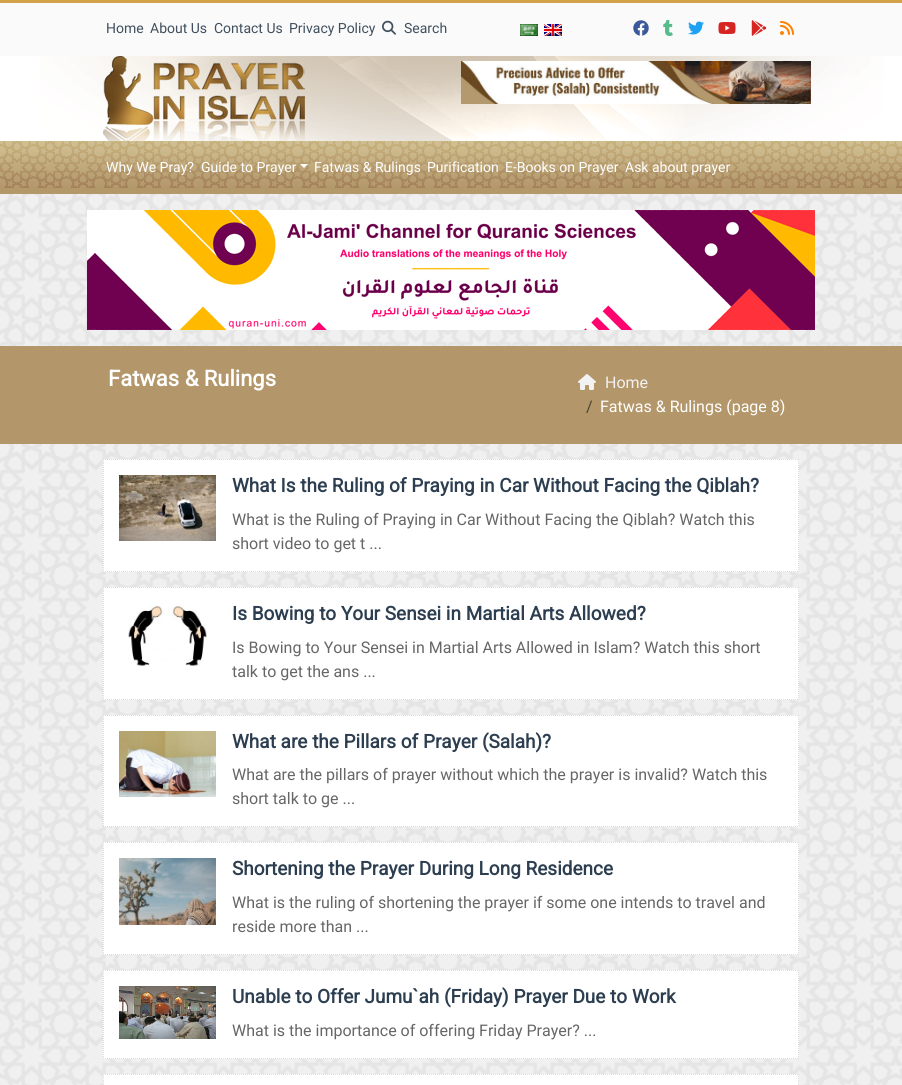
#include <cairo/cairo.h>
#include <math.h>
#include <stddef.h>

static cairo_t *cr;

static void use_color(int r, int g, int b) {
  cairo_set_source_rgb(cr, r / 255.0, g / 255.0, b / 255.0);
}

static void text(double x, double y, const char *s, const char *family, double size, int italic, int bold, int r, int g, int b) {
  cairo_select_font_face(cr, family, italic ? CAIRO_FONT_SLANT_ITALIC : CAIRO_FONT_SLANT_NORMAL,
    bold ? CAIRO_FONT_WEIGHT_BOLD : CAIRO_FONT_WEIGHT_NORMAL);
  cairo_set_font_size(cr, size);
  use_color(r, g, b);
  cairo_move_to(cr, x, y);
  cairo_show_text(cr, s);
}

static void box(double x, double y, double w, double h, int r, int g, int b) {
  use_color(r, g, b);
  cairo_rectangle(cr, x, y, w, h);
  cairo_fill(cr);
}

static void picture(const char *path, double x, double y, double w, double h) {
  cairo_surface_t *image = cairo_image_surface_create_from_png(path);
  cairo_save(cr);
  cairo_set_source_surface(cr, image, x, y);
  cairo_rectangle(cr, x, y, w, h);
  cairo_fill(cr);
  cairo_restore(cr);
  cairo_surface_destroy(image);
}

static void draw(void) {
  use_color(255, 255, 255);
  cairo_paint(cr);
  picture("img_01.png", 0, 194, 902, 891);
  picture("img_02.png", 40, 56, 844, 85);
  box(0, 3, 902, 53, 250, 250, 250);
  box(0, 0, 902, 3, 210, 162, 74);
  picture("img_03.png", 382, 20, 14, 15);
  picture("img_04.png", 520, 24, 18, 12);
  picture("img_05.png", 544, 24, 18, 12);
  picture("img_06.png", 633, 20, 16, 16);
  picture("img_07.png", 663, 20, 10, 16);
  picture("img_08.png", 688, 21, 16, 14);
  picture("img_09.png", 718, 22, 18, 12);
  picture("img_10.png", 751, 20, 16, 16);
  picture("img_11.png", 780, 21, 14, 14);
  picture("img_12.png", 103, 56, 202, 85);
  picture("img_13.png", 461, 61, 350, 43);
  box(0, 188, 902, 6, 179, 152, 106);
  picture("img_14.png", 0, 141, 902, 47);
  use_color(255, 255, 255);
  cairo_new_path(cr);
  cairo_move_to(cr, 300, 164);
  cairo_line_to(cr, 308, 164);
  cairo_line_to(cr, 304, 168);
  cairo_close_path(cr);
  cairo_fill(cr);
  picture("img_15.png", 87, 210, 728, 120);
  box(0, 346, 902, 98, 179, 150, 105);
  picture("img_16.png", 578, 374, 18, 16);
  box(103, 459, 696, 113, 255, 255, 255);
  cairo_new_path(cr);
  cairo_move_to(cr, 103, 459.5);
  cairo_line_to(cr, 799, 459.5);
  use_color(221, 221, 221);
  cairo_set_line_width(cr, 1);
  cairo_set_dash(cr, (double[]){1, 1}, 2, 0);
  cairo_stroke(cr);
  cairo_new_path(cr);
  cairo_move_to(cr, 798.5, 459);
  cairo_line_to(cr, 798.5, 572);
  cairo_stroke(cr);
  cairo_new_path(cr);
  cairo_move_to(cr, 103, 571.5);
  cairo_line_to(cr, 799, 571.5);
  cairo_stroke(cr);
  cairo_new_path(cr);
  cairo_move_to(cr, 103.5, 459);
  cairo_line_to(cr, 103.5, 572);
  cairo_stroke(cr);
  picture("img_17.png", 119, 475, 97, 66);
  box(103, 587, 696, 113, 255, 255, 255);
  cairo_new_path(cr);
  cairo_move_to(cr, 103, 587.5);
  cairo_line_to(cr, 799, 587.5);
  use_color(221, 221, 221);
  cairo_stroke(cr);
  cairo_new_path(cr);
  cairo_move_to(cr, 798.5, 587);
  cairo_line_to(cr, 798.5, 700);
  cairo_stroke(cr);
  cairo_new_path(cr);
  cairo_move_to(cr, 103, 699.5);
  cairo_line_to(cr, 799, 699.5);
  cairo_stroke(cr);
  cairo_new_path(cr);
  cairo_move_to(cr, 103.5, 587);
  cairo_line_to(cr, 103.5, 700);
  cairo_stroke(cr);
  picture("img_18.png", 128, 603, 79, 63);
  box(103, 715, 696, 112, 255, 255, 255);
  cairo_new_path(cr);
  cairo_move_to(cr, 103, 715.5);
  cairo_line_to(cr, 799, 715.5);
  use_color(221, 221, 221);
  cairo_stroke(cr);
  cairo_new_path(cr);
  cairo_move_to(cr, 798.5, 715);
  cairo_line_to(cr, 798.5, 827);
  cairo_stroke(cr);
  cairo_new_path(cr);
  cairo_move_to(cr, 103, 826.5);
  cairo_line_to(cr, 799, 826.5);
  cairo_stroke(cr);
  cairo_new_path(cr);
  cairo_move_to(cr, 103.5, 715);
  cairo_line_to(cr, 103.5, 827);
  cairo_stroke(cr);
  picture("img_19.png", 119, 731, 97, 66);
  box(103, 842, 696, 113, 255, 255, 255);
  cairo_new_path(cr);
  cairo_move_to(cr, 103, 842.5);
  cairo_line_to(cr, 799, 842.5);
  use_color(221, 221, 221);
  cairo_stroke(cr);
  cairo_new_path(cr);
  cairo_move_to(cr, 798.5, 842);
  cairo_line_to(cr, 798.5, 955);
  cairo_stroke(cr);
  cairo_new_path(cr);
  cairo_move_to(cr, 103, 954.5);
  cairo_line_to(cr, 799, 954.5);
  cairo_stroke(cr);
  cairo_new_path(cr);
  cairo_move_to(cr, 103.5, 842);
  cairo_line_to(cr, 103.5, 955);
  cairo_stroke(cr);
  picture("img_20.png", 119, 858, 97, 67);
  box(103, 970, 696, 89, 255, 255, 255);
  cairo_new_path(cr);
  cairo_move_to(cr, 103, 970.5);
  cairo_line_to(cr, 799, 970.5);
  use_color(221, 221, 221);
  cairo_stroke(cr);
  cairo_new_path(cr);
  cairo_move_to(cr, 798.5, 970);
  cairo_line_to(cr, 798.5, 1059);
  cairo_stroke(cr);
  cairo_new_path(cr);
  cairo_move_to(cr, 103, 1058.5);
  cairo_line_to(cr, 799, 1058.5);
  cairo_stroke(cr);
  cairo_new_path(cr);
  cairo_move_to(cr, 103.5, 970);
  cairo_line_to(cr, 103.5, 1059);
  cairo_stroke(cr);
  picture("img_21.png", 119, 986, 97, 53);
  box(103, 1074, 696, 11, 255, 255, 255);
  cairo_new_path(cr);
  cairo_move_to(cr, 103, 1074.5);
  cairo_line_to(cr, 799, 1074.5);
  use_color(221, 221, 221);
  cairo_stroke(cr);
  cairo_new_path(cr);
  cairo_move_to(cr, 798.5, 1074);
  cairo_line_to(cr, 798.5, 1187);
  cairo_stroke(cr);
  cairo_new_path(cr);
  cairo_move_to(cr, 103.5, 1074);
  cairo_line_to(cr, 103.5, 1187);
  cairo_stroke(cr);
  text(106, 33, "Home", "Roboto", 14, 0, 0, 63, 79, 94);
  text(150, 33, "About Us", "Roboto", 14, 0, 0, 63, 79, 94);
  text(214, 33, "Contact Us", "Roboto", 14, 0, 0, 63, 79, 94);
  text(289, 33, "Privacy Policy", "Roboto", 14, 0, 0, 63, 79, 94);
  text(404, 33, "Search", "Roboto", 14, 0, 0, 63, 79, 94);
  text(106, 172, "Why We Pray?", "Roboto", 14, 0, 0, 255, 255, 255);
  text(201, 172, "Guide to Prayer", "Roboto", 14, 0, 0, 255, 255, 255);
  text(314, 172, "Fatwas & Rulings", "Roboto", 14, 0, 0, 255, 255, 255);
  text(427, 172, "Purification", "Roboto", 14, 0, 0, 255, 255, 255);
  text(505, 172, "E-Books on Prayer", "Roboto", 14, 0, 0, 255, 255, 255);
  text(625, 172, "Ask about prayer", "Roboto", 14, 0, 0, 255, 255, 255);
  text(108, 386, "Fatwas & Rulings", "Roboto", 22, 0, 1, 255, 255, 255);
  text(605, 388, "Home", "Roboto", 16, 0, 0, 242, 242, 242);
  text(586, 412, "/", "Roboto", 16, 0, 0, 70, 65, 57);
  text(600, 412, "Fatwas & Rulings (page 8)", "Roboto", 16, 0, 0, 255, 255, 255);
  text(232, 492, "What Is the Ruling of Praying in Car Without Facing the Qiblah?", "Roboto", 19, 0, 1, 44, 62, 80);
  text(232, 525, "What is the Ruling of Praying in Car Without Facing the Qiblah? Watch this", "Roboto", 16, 0, 0, 102, 102, 102);
  text(232, 549, "short video to get t ...", "Roboto", 16, 0, 0, 102, 102, 102);
  text(232, 620, "Is Bowing to Your Sensei in Martial Arts Allowed?", "Roboto", 19, 0, 1, 44, 62, 80);
  text(232, 653, "Is Bowing to Your Sensei in Martial Arts Allowed in Islam? Watch this short", "Roboto", 16, 0, 0, 102, 102, 102);
  text(232, 677, "talk to get the ans ...", "Roboto", 16, 0, 0, 102, 102, 102);
  text(232, 748, "What are the Pillars of Prayer (Salah)?", "Roboto", 19, 0, 1, 44, 62, 80);
  text(232, 780, "What are the pillars of prayer without which the prayer is invalid? Watch this", "Roboto", 16, 0, 0, 102, 102, 102);
  text(232, 804, "short talk to ge ...", "Roboto", 16, 0, 0, 102, 102, 102);
  text(232, 875, "Shortening the Prayer During Long Residence", "Roboto", 19, 0, 1, 44, 62, 80);
  text(232, 908, "What is the ruling of shortening the prayer if some one intends to travel and", "Roboto", 16, 0, 0, 102, 102, 102);
  text(232, 932, "reside more than ...", "Roboto", 16, 0, 0, 102, 102, 102);
  text(232, 1003, "Unable to Offer Jumu`ah (Friday) Prayer Due to Work", "Roboto", 19, 0, 1, 44, 62, 80);
  text(232, 1036, "What is the importance of offering Friday Prayer? ...", "Roboto", 16, 0, 0, 102, 102, 102);
}

int main(void) {
  cairo_surface_t *surface = cairo_image_surface_create(CAIRO_FORMAT_RGB24, 902, 1085);
  cr = cairo_create(surface);
  cairo_font_options_t *options = cairo_font_options_create();
  cairo_font_options_set_hint_metrics(options, CAIRO_HINT_METRICS_OFF);
  cairo_font_options_set_hint_style(options, CAIRO_HINT_STYLE_NONE);
  cairo_set_font_options(cr, options);
  cairo_set_miter_limit(cr, 4);
  draw();
  cairo_surface_write_to_png(surface, "out.png");
  cairo_font_options_destroy(options);
  cairo_destroy(cr);
  cairo_surface_destroy(surface);
  return 0;
}
